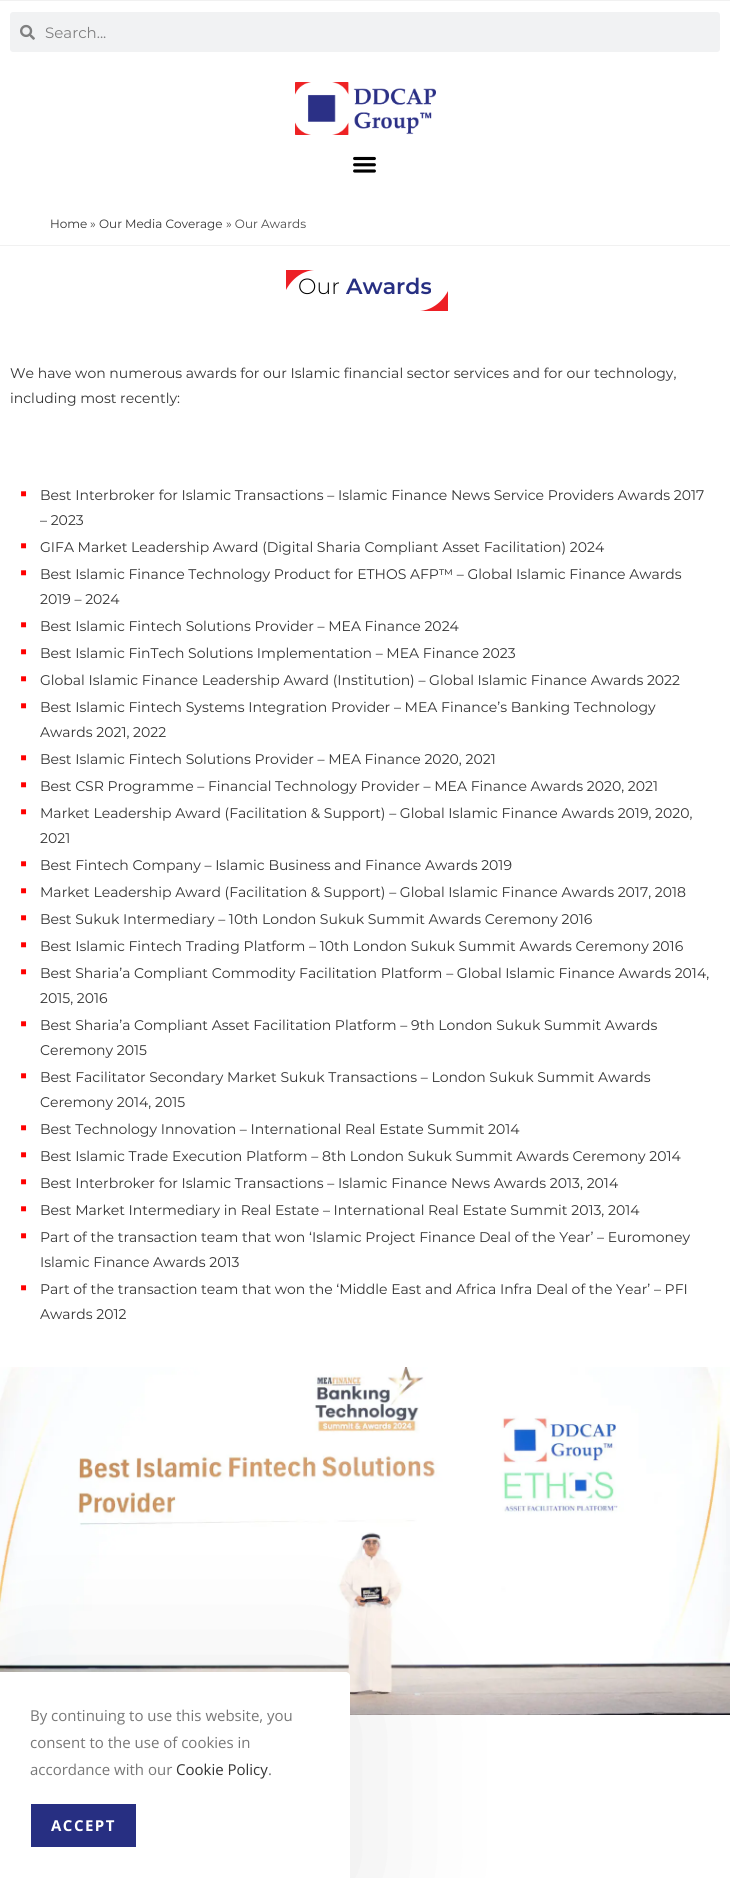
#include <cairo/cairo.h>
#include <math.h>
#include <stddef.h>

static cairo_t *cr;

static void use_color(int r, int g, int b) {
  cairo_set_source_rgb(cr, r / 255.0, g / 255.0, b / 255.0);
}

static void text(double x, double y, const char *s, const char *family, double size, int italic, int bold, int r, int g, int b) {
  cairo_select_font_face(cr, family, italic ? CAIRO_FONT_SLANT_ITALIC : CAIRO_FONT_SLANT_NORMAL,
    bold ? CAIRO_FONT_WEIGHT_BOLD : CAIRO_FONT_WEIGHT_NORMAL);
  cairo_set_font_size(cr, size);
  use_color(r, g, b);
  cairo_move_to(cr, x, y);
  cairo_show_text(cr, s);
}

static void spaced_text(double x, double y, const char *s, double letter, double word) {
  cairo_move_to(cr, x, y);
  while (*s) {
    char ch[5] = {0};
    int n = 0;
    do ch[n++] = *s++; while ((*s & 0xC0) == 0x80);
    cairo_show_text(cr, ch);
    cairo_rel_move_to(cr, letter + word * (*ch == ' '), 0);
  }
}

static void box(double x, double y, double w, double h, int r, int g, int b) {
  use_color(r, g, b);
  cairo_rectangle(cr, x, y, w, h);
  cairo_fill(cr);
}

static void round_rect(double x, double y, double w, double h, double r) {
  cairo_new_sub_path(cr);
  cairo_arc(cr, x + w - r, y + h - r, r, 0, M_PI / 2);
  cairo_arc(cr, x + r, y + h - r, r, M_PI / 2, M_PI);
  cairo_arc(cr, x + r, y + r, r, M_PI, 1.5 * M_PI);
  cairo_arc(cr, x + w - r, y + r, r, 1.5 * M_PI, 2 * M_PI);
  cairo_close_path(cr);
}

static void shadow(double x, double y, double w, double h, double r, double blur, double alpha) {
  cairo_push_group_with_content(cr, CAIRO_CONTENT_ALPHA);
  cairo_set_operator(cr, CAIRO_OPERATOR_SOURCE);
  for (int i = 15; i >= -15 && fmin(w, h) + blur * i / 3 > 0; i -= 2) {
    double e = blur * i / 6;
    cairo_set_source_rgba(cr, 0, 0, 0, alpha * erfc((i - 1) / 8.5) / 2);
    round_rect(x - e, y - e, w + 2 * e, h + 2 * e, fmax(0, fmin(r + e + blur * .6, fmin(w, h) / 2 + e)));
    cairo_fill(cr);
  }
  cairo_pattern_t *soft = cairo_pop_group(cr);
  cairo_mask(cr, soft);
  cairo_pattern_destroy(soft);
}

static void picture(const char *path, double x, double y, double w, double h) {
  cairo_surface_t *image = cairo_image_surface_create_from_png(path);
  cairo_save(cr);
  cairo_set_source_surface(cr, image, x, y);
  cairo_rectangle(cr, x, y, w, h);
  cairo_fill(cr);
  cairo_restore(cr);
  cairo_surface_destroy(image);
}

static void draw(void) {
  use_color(255, 255, 255);
  cairo_paint(cr);
  box(0, 0, 730, 1, 241, 241, 241);
  box(0, 245, 730, 1, 241, 241, 241);
  use_color(241, 242, 243);
  round_rect(10, 12, 710, 40, 3);
  cairo_fill(cr);
  picture("img_01.png", 20, 24, 15, 16);
  picture("img_02.png", 295, 82, 141, 53);
  picture("img_03.png", 353, 156, 23, 17);
  picture("img_06.png", 0, 1367, 730, 348);
  use_color(0, 0, 0);
  shadow(0, 1692, 350, 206, 4, 75, 0.1);
  use_color(255, 255, 255);
  cairo_new_path(cr);
  cairo_move_to(cr, 0, 1672);
  cairo_line_to(cr, 346, 1672);
  cairo_curve_to(cr, 348, 1672, 350, 1674, 350, 1676);
  cairo_line_to(cr, 350, 1878);
  cairo_line_to(cr, 0, 1878);
  cairo_close_path(cr);
  cairo_fill(cr);
  box(31, 1804, 105, 43, 39, 47, 130);
  text(45, 38, "Search...", "Montserrat", 15, 0, 0, 127, 127, 128);
  text(50, 228, "Home", "Montserrat", 12, 0, 0, 51, 51, 51);
  text(90, 228, "»", "Montserrat", 12, 0, 0, 74, 74, 74);
  text(99, 228, "Our Media Coverage", "Montserrat", 12, 0, 0, 51, 51, 51);
  text(226, 228, "» Our Awards", "Montserrat", 12, 0, 0, 74, 74, 74);
  text(346, 294, "Awards", "Montserrat SemiBold", 22, 0, 0, 39, 47, 130);
  text(298, 294, "Our", "Montserrat Light", 22, 0, 0, 0, 0, 0);
  picture("img_04.png", 286, 270, 28, 20);
  picture("img_05.png", 420, 291, 28, 20);
  text(10, 378, "We have won numerous awards for our Islamic financial sector services and for our technology,", "Montserrat", 14, 0, 0, 51, 51, 51);
  text(10, 403, "including most recently:", "Montserrat", 14, 0, 0, 51, 51, 51);
  text(20, 500, "▪", "Liberation Sans", 20, 0, 0, 255, 0, 0);
  text(40, 500, "Best Interbroker for Islamic Transactions – Islamic Finance News Service Providers Awards 2017", "Montserrat", 14, 0, 0, 51, 51, 51);
  text(40, 525, "– 2023", "Montserrat", 14, 0, 0, 51, 51, 51);
  text(20, 552, "▪", "Liberation Sans", 20, 0, 0, 255, 0, 0);
  text(40, 552, "GIFA Market Leadership Award (Digital Sharia Compliant Asset Facilitation) 2024", "Montserrat", 14, 0, 0, 51, 51, 51);
  text(20, 579, "▪", "Liberation Sans", 20, 0, 0, 255, 0, 0);
  text(40, 579, "Best Islamic Finance Technology Product for ETHOS AFP™ – Global Islamic Finance Awards", "Montserrat", 14, 0, 0, 51, 51, 51);
  text(40, 604, "2019 – 2024", "Montserrat", 14, 0, 0, 51, 51, 51);
  text(20, 631, "▪", "Liberation Sans", 20, 0, 0, 255, 0, 0);
  text(40, 631, "Best Islamic Fintech Solutions Provider – MEA Finance 2024", "Montserrat", 14, 0, 0, 51, 51, 51);
  text(20, 658, "▪", "Liberation Sans", 20, 0, 0, 255, 0, 0);
  text(40, 658, "Best Islamic FinTech Solutions Implementation – MEA Finance 2023", "Montserrat", 14, 0, 0, 51, 51, 51);
  text(20, 685, "▪", "Liberation Sans", 20, 0, 0, 255, 0, 0);
  text(40, 685, "Global Islamic Finance Leadership Award (Institution) – Global Islamic Finance Awards 2022", "Montserrat", 14, 0, 0, 51, 51, 51);
  text(20, 712, "▪", "Liberation Sans", 20, 0, 0, 255, 0, 0);
  text(40, 712, "Best Islamic Fintech Systems Integration Provider – MEA Finance’s Banking Technology", "Montserrat", 14, 0, 0, 51, 51, 51);
  text(40, 737, "Awards 2021, 2022", "Montserrat", 14, 0, 0, 51, 51, 51);
  text(20, 764, "▪", "Liberation Sans", 20, 0, 0, 255, 0, 0);
  text(40, 764, "Best Islamic Fintech Solutions Provider – MEA Finance 2020, 2021", "Montserrat", 14, 0, 0, 51, 51, 51);
  text(20, 791, "▪", "Liberation Sans", 20, 0, 0, 255, 0, 0);
  text(40, 791, "Best CSR Programme – Financial Technology Provider – MEA Finance Awards 2020, 2021", "Montserrat", 14, 0, 0, 51, 51, 51);
  text(20, 818, "▪", "Liberation Sans", 20, 0, 0, 255, 0, 0);
  text(40, 818, "Market Leadership Award (Facilitation & Support) – Global Islamic Finance Awards 2019, 2020,", "Montserrat", 14, 0, 0, 51, 51, 51);
  text(40, 843, "2021", "Montserrat", 14, 0, 0, 51, 51, 51);
  text(20, 870, "▪", "Liberation Sans", 20, 0, 0, 255, 0, 0);
  text(40, 870, "Best Fintech Company – Islamic Business and Finance Awards 2019", "Montserrat", 14, 0, 0, 51, 51, 51);
  text(20, 897, "▪", "Liberation Sans", 20, 0, 0, 255, 0, 0);
  text(40, 897, "Market Leadership Award (Facilitation & Support) – Global Islamic Finance Awards 2017, 2018", "Montserrat", 14, 0, 0, 51, 51, 51);
  text(20, 924, "▪", "Liberation Sans", 20, 0, 0, 255, 0, 0);
  text(40, 924, "Best Sukuk Intermediary – 10th London Sukuk Summit Awards Ceremony 2016", "Montserrat", 14, 0, 0, 51, 51, 51);
  text(20, 951, "▪", "Liberation Sans", 20, 0, 0, 255, 0, 0);
  text(40, 951, "Best Islamic Fintech Trading Platform – 10th London Sukuk Summit Awards Ceremony 2016", "Montserrat", 14, 0, 0, 51, 51, 51);
  text(20, 978, "▪", "Liberation Sans", 20, 0, 0, 255, 0, 0);
  text(40, 978, "Best Sharia’a Compliant Commodity Facilitation Platform – Global Islamic Finance Awards 2014,", "Montserrat", 14, 0, 0, 51, 51, 51);
  text(40, 1003, "2015, 2016", "Montserrat", 14, 0, 0, 51, 51, 51);
  text(20, 1030, "▪", "Liberation Sans", 20, 0, 0, 255, 0, 0);
  text(40, 1030, "Best Sharia’a Compliant Asset Facilitation Platform – 9th London Sukuk Summit Awards", "Montserrat", 14, 0, 0, 51, 51, 51);
  text(40, 1055, "Ceremony 2015", "Montserrat", 14, 0, 0, 51, 51, 51);
  text(20, 1082, "▪", "Liberation Sans", 20, 0, 0, 255, 0, 0);
  text(40, 1082, "Best Facilitator Secondary Market Sukuk Transactions – London Sukuk Summit Awards", "Montserrat", 14, 0, 0, 51, 51, 51);
  text(40, 1107, "Ceremony 2014, 2015", "Montserrat", 14, 0, 0, 51, 51, 51);
  text(20, 1134, "▪", "Liberation Sans", 20, 0, 0, 255, 0, 0);
  text(40, 1134, "Best Technology Innovation – International Real Estate Summit 2014", "Montserrat", 14, 0, 0, 51, 51, 51);
  text(20, 1161, "▪", "Liberation Sans", 20, 0, 0, 255, 0, 0);
  text(40, 1161, "Best Islamic Trade Execution Platform – 8th London Sukuk Summit Awards Ceremony 2014", "Montserrat", 14, 0, 0, 51, 51, 51);
  text(20, 1188, "▪", "Liberation Sans", 20, 0, 0, 255, 0, 0);
  text(40, 1188, "Best Interbroker for Islamic Transactions – Islamic Finance News Awards 2013, 2014", "Montserrat", 14, 0, 0, 51, 51, 51);
  text(20, 1215, "▪", "Liberation Sans", 20, 0, 0, 255, 0, 0);
  text(40, 1215, "Best Market Intermediary in Real Estate – International Real Estate Summit 2013, 2014", "Montserrat", 14, 0, 0, 51, 51, 51);
  text(20, 1242, "▪", "Liberation Sans", 20, 0, 0, 255, 0, 0);
  text(40, 1242, "Part of the transaction team that won ‘Islamic Project Finance Deal of the Year’ – Euromoney", "Montserrat", 14, 0, 0, 51, 51, 51);
  text(40, 1267, "Islamic Finance Awards 2013", "Montserrat", 14, 0, 0, 51, 51, 51);
  text(20, 1294, "▪", "Liberation Sans", 20, 0, 0, 255, 0, 0);
  text(40, 1294, "Part of the transaction team that won the ‘Middle East and Africa Infra Deal of the Year’ – PFI", "Montserrat", 14, 0, 0, 51, 51, 51);
  text(40, 1319, "Awards 2012", "Montserrat", 14, 0, 0, 51, 51, 51);
  text(30, 1721, "By continuing to use this website, you", "Open Sans", 15, 0, 0, 119, 119, 119);
  text(30, 1748, "consent to the use of cookies in", "Open Sans", 15, 0, 0, 119, 119, 119);
  text(30, 1775, "accordance with our", "Open Sans", 15, 0, 0, 119, 119, 119);
  text(176, 1775, "Cookie Policy", "Open Sans", 15, 0, 0, 51, 51, 51);
  text(268, 1775, ".", "Open Sans", 15, 0, 0, 119, 119, 119);
  cairo_select_font_face(cr, "Open Sans", CAIRO_FONT_SLANT_NORMAL, CAIRO_FONT_WEIGHT_BOLD);
  use_color(255, 255, 255);
  spaced_text(51, 1831, "ACCEPT", 1.5, 0);
}

int main(void) {
  cairo_surface_t *surface = cairo_image_surface_create(CAIRO_FORMAT_RGB24, 730, 1878);
  cr = cairo_create(surface);
  cairo_font_options_t *options = cairo_font_options_create();
  cairo_font_options_set_hint_metrics(options, CAIRO_HINT_METRICS_OFF);
  cairo_font_options_set_hint_style(options, CAIRO_HINT_STYLE_NONE);
  cairo_set_font_options(cr, options);
  cairo_set_miter_limit(cr, 4);
  draw();
  cairo_surface_write_to_png(surface, "out.png");
  cairo_font_options_destroy(options);
  cairo_destroy(cr);
  cairo_surface_destroy(surface);
  return 0;
}
